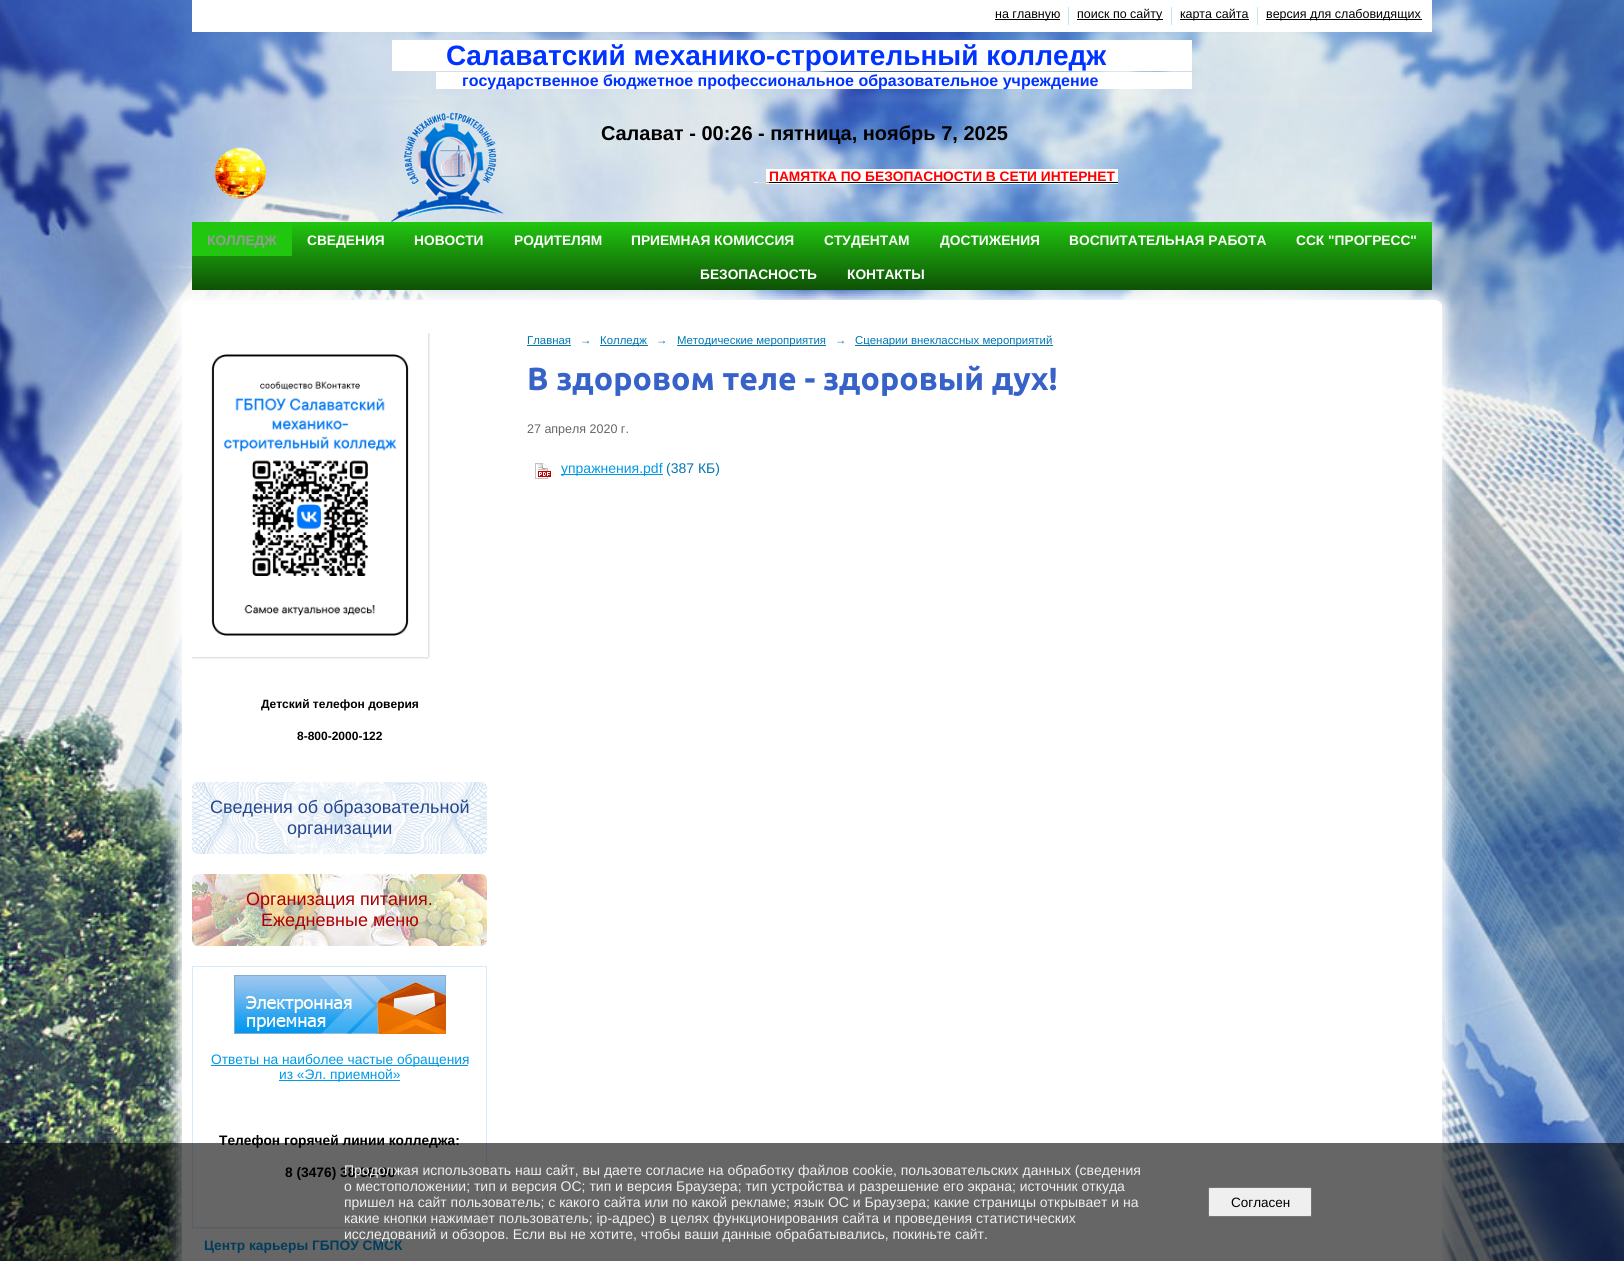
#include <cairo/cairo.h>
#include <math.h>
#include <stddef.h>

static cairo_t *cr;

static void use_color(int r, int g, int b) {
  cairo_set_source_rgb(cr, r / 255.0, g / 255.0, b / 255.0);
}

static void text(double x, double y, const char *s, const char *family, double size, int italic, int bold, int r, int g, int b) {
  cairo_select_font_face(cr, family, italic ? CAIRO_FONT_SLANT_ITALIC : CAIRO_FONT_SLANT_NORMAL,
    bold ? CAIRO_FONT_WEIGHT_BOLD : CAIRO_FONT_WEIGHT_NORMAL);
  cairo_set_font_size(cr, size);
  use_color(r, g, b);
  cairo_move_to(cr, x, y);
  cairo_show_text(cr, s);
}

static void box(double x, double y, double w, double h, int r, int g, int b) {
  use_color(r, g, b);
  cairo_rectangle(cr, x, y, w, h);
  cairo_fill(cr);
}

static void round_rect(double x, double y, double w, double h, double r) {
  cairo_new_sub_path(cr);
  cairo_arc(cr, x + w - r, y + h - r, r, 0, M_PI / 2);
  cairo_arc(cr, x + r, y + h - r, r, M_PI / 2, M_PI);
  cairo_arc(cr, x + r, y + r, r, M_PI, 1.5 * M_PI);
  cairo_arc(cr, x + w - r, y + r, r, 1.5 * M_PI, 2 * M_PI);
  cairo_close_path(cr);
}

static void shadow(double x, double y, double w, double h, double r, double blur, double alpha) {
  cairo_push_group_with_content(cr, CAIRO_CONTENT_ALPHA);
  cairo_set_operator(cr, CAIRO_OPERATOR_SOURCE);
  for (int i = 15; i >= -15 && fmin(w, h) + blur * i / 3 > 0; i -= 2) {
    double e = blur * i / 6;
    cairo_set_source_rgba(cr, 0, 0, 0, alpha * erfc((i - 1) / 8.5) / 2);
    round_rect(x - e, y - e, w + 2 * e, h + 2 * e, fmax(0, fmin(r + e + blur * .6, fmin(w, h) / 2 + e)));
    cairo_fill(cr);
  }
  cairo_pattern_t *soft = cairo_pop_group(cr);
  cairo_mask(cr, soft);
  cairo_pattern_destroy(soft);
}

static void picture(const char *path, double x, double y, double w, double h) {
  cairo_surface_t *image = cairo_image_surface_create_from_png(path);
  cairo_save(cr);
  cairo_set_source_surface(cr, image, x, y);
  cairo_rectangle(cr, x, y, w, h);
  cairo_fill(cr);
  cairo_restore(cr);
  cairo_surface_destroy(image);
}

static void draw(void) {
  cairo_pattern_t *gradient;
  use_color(255, 255, 255);
  cairo_paint(cr);
  picture("img_01.png", 0, 0, 1624, 1261);
  box(192, 0, 1240, 32, 255, 255, 255);
  box(995, 19, 65, 1, 0, 0, 0);
  box(1068, 7, 1, 18, 194, 230, 245);
  box(1077, 19, 86, 1, 0, 0, 0);
  box(1171, 7, 1, 18, 194, 230, 245);
  box(1180, 19, 69, 1, 0, 0, 0);
  box(1257, 7, 1, 18, 194, 230, 245);
  box(1266, 19, 156, 1, 0, 0, 0);
  box(392, 40, 800, 31, 255, 255, 255);
  box(436, 72, 756, 17, 255, 255, 255);
  picture("img_02.png", 214, 147, 53, 52);
  box(754, 182, 4, 1, 236, 240, 241);
  box(758, 182, 8, 1, 221, 221, 221);
  box(766, 169, 352, 15, 255, 255, 255);
  box(766, 182, 3, 1, 230, 126, 34);
  box(769, 182, 349, 1, 0, 0, 0);
  picture("img_03.png", 391, 112, 113, 110);
  use_color(255, 255, 255);
  shadow(177, 295, 1270, 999, 12, 7, 1);
  gradient = cairo_pattern_create_linear(812, 222, 812, 290);
  cairo_pattern_add_color_stop_rgba(gradient, 0, 0.129, 0.78, 0.059, 1);
  cairo_pattern_add_color_stop_rgba(gradient, 1, 0.055, 0.318, 0.024, 1);
  cairo_set_source(cr, gradient);
  cairo_pattern_destroy(gradient);
  cairo_rectangle(cr, 192, 222, 1240, 68);
  cairo_fill(cr);
  box(192, 223, 100, 33, 33, 199, 15);
  use_color(255, 255, 255);
  round_rect(182, 300, 1260, 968, 7);
  cairo_fill(cr);
  box(527, 345, 44, 1, 0, 119, 179);
  box(600, 345, 48, 1, 0, 119, 179);
  box(677, 345, 149, 1, 0, 119, 179);
  box(855, 345, 198, 1, 0, 119, 179);
  picture("img_04.png", 535, 463, 16, 16);
  box(561, 474, 102, 1, 0, 153, 230);
  cairo_save(cr);
  cairo_rectangle(cr, 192, 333, 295, 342);
  cairo_clip(cr);
  cairo_set_fill_rule(cr, CAIRO_FILL_RULE_EVEN_ODD);
  cairo_new_path(cr);
  cairo_move_to(cr, 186, 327);
  cairo_line_to(cr, 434, 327);
  cairo_line_to(cr, 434, 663);
  cairo_line_to(cr, 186, 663);
  cairo_close_path(cr);
  cairo_move_to(cr, 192, 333);
  cairo_line_to(cr, 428, 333);
  cairo_line_to(cr, 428, 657);
  cairo_line_to(cr, 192, 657);
  cairo_close_path(cr);
  cairo_clip(cr);
  use_color(0, 0, 0);
  shadow(192, 333, 236, 324, 0, 1.5, 0.3);
  cairo_restore(cr);
  picture("img_05.png", 211, 354, 198, 282);
  picture("img_06.png", 192, 782, 295, 72);
  picture("img_07.png", 192, 874, 295, 72);
  cairo_rectangle(cr, 192.5, 966.5, 294, 261);
  use_color(214, 235, 255);
  cairo_set_line_width(cr, 1);
  cairo_stroke(cr);
  picture("img_08.png", 234, 975, 212, 59);
  box(211, 1065, 257, 1, 0, 153, 230);
  box(279, 1080, 121, 1, 0, 153, 230);
  cairo_new_path(cr);
  cairo_move_to(cr, 192, 1228.5);
  cairo_line_to(cr, 487, 1228.5);
  use_color(214, 235, 255);
  cairo_set_dash(cr, (double[]){1, 1}, 2, 0);
  cairo_stroke(cr);
  text(995, 18, "на главную", "Liberation Sans", 12.5, 0, 0, 0, 0, 0);
  text(1077, 18, "поиск по сайту", "Liberation Sans", 12.5, 0, 0, 0, 0, 0);
  text(1180, 18, "карта сайта", "Liberation Sans", 12.5, 0, 0, 0, 0, 0);
  text(1266, 18, "версия для слабовидящих", "Liberation Sans", 12.5, 0, 0, 0, 0, 0);
  text(446, 65, "Салаватский механико-строительный колледж", "Liberation Sans", 28, 0, 1, 0, 51, 255);
  text(462, 86, "государственное бюджетное профессиональное образовательное учреждение", "Liberation Sans", 16, 0, 1, 0, 51, 255);
  text(601, 140, "Салават - 00:26 - пятница, ноябрь 7, 2025", "Liberation Sans", 20, 0, 1, 0, 0, 0);
  text(769, 181, "ПАМЯТКА ПО БЕЗОПАСНОСТИ В СЕТИ ИНТЕРНЕТ", "Liberation Sans", 13.75, 0, 1, 255, 0, 0);
  text(207, 245, "КОЛЛЕДЖ", "Liberation Sans", 13.75, 0, 1, 153, 153, 153);
  text(307, 245, "СВЕДЕНИЯ", "Liberation Sans", 13.75, 0, 1, 255, 255, 255);
  text(414, 245, "НОВОСТИ", "Liberation Sans", 13.75, 0, 1, 255, 255, 255);
  text(514, 245, "РОДИТЕЛЯМ", "Liberation Sans", 13.75, 0, 1, 255, 255, 255);
  text(631, 245, "ПРИЕМНАЯ КОМИССИЯ", "Liberation Sans", 13.75, 0, 1, 255, 255, 255);
  text(824, 245, "СТУДЕНТАМ", "Liberation Sans", 13.75, 0, 1, 255, 255, 255);
  text(940, 245, "ДОСТИЖЕНИЯ", "Liberation Sans", 13.75, 0, 1, 255, 255, 255);
  text(1069, 245, "ВОСПИТАТЕЛЬНАЯ РАБОТА", "Liberation Sans", 13.75, 0, 1, 255, 255, 255);
  text(1296, 245, "ССК \"ПРОГРЕСС\"", "Liberation Sans", 13.75, 0, 1, 255, 255, 255);
  text(700, 279, "БЕЗОПАСНОСТЬ", "Liberation Sans", 13.75, 0, 1, 255, 255, 255);
  text(847, 279, "КОНТАКТЫ", "Liberation Sans", 13.75, 0, 1, 255, 255, 255);
  text(527, 344, "Главная", "Liberation Sans", 11.4, 0, 0, 0, 119, 179);
  text(580, 344, "→", "Liberation Sans", 11.4, 1, 0, 0, 119, 179);
  text(600, 344, "Колледж", "Liberation Sans", 11.4, 0, 0, 0, 119, 179);
  text(656, 344, "→", "Liberation Sans", 11.4, 1, 0, 0, 119, 179);
  text(677, 344, "Методические мероприятия", "Liberation Sans", 11.4, 0, 0, 0, 119, 179);
  text(835, 344, "→", "Liberation Sans", 11.4, 1, 0, 0, 119, 179);
  text(855, 344, "Сценарии внеклассных мероприятий", "Liberation Sans", 11.4, 0, 0, 0, 119, 179);
  text(527, 390, "В здоровом теле - здоровый дух!", "Ubuntu", 32, 0, 1, 55, 98, 200);
  text(527, 433, "27 апреля 2020 г.", "Liberation Sans", 12.5, 0, 0, 102, 102, 102);
  text(561, 473, "упражнения.pdf", "Liberation Sans", 14, 0, 0, 0, 153, 230);
  text(666, 473, "(387 КБ)", "Liberation Sans", 14, 0, 0, 0, 119, 179);
  text(261, 708, "Детский телефон доверия", "Liberation Sans", 12, 0, 1, 0, 0, 0);
  text(297, 740, "8-800-2000-122", "Liberation Sans", 12, 0, 1, 0, 0, 0);
  text(210, 813, "Сведения об образовательной", "Liberation Sans", 18, 0, 0, 37, 71, 141);
  text(287, 834, "организации", "Liberation Sans", 18, 0, 0, 37, 71, 141);
  text(246, 905, "Организация питания.", "Liberation Sans", 18, 0, 0, 172, 0, 0);
  text(261, 926, "Ежедневные меню", "Liberation Sans", 18, 0, 0, 172, 0, 0);
  text(211, 1064, "Ответы на наиболее частые обращения", "Liberation Sans", 13.75, 0, 0, 0, 153, 230);
  text(279, 1079, "из «Эл. приемной»", "Liberation Sans", 13.75, 0, 0, 0, 153, 230);
  text(219, 1145, "Телефон горячей линии колледжа:", "Liberation Sans", 13.75, 0, 1, 0, 0, 0);
  text(285, 1177, "8 (3476) 38-58-90", "Liberation Sans", 13.75, 0, 1, 0, 0, 0);
  text(204, 1250, "Центр карьеры ГБПОУ СМСК", "Liberation Sans", 13.75, 0, 1, 0, 153, 230);
  cairo_set_source_rgba(cr, 0, 0, 0, 0.6);
  cairo_rectangle(cr, 0, 1143, 1624, 118);
  cairo_fill(cr);
  text(344, 1175, "Продолжая использовать наш сайт, вы даете согласие на обработку файлов cookie, пользовательских данных (сведения", "Liberation Sans", 14, 0, 0, 239, 239, 239);
  text(344, 1191, "о местоположении; тип и версия ОС; тип и версия Браузера; тип устройства и разрешение его экрана; источник откуда", "Liberation Sans", 14, 0, 0, 239, 239, 239);
  text(344, 1207, "пришел на сайт пользователь; с какого сайта или по какой рекламе; язык ОС и Браузера; какие страницы открывает и на", "Liberation Sans", 14, 0, 0, 239, 239, 239);
  text(344, 1223, "какие кнопки нажимает пользователь; ip-адрес) в целях функционирования сайта и проведения статистических", "Liberation Sans", 14, 0, 0, 239, 239, 239);
  text(344, 1239, "исследований и обзоров. Если вы не хотите, чтобы ваши данные обрабатывались, покиньте сайт.", "Liberation Sans", 14, 0, 0, 239, 239, 239);
  round_rect(1208.5, 1187.5, 103, 29, 1.5);
  cairo_fill_preserve(cr);
  use_color(118, 118, 118);
  cairo_set_dash(cr, NULL, 0, 0);
  cairo_stroke(cr);
  text(1231, 1207, "Согласен", "Liberation Sans", 13.5, 0, 0, 0, 0, 0);
}

int main(void) {
  cairo_surface_t *surface = cairo_image_surface_create(CAIRO_FORMAT_RGB24, 1624, 1261);
  cr = cairo_create(surface);
  cairo_font_options_t *options = cairo_font_options_create();
  cairo_font_options_set_hint_metrics(options, CAIRO_HINT_METRICS_OFF);
  cairo_font_options_set_hint_style(options, CAIRO_HINT_STYLE_NONE);
  cairo_set_font_options(cr, options);
  cairo_set_miter_limit(cr, 4);
  draw();
  cairo_surface_write_to_png(surface, "out.png");
  cairo_font_options_destroy(options);
  cairo_destroy(cr);
  cairo_surface_destroy(surface);
  return 0;
}
